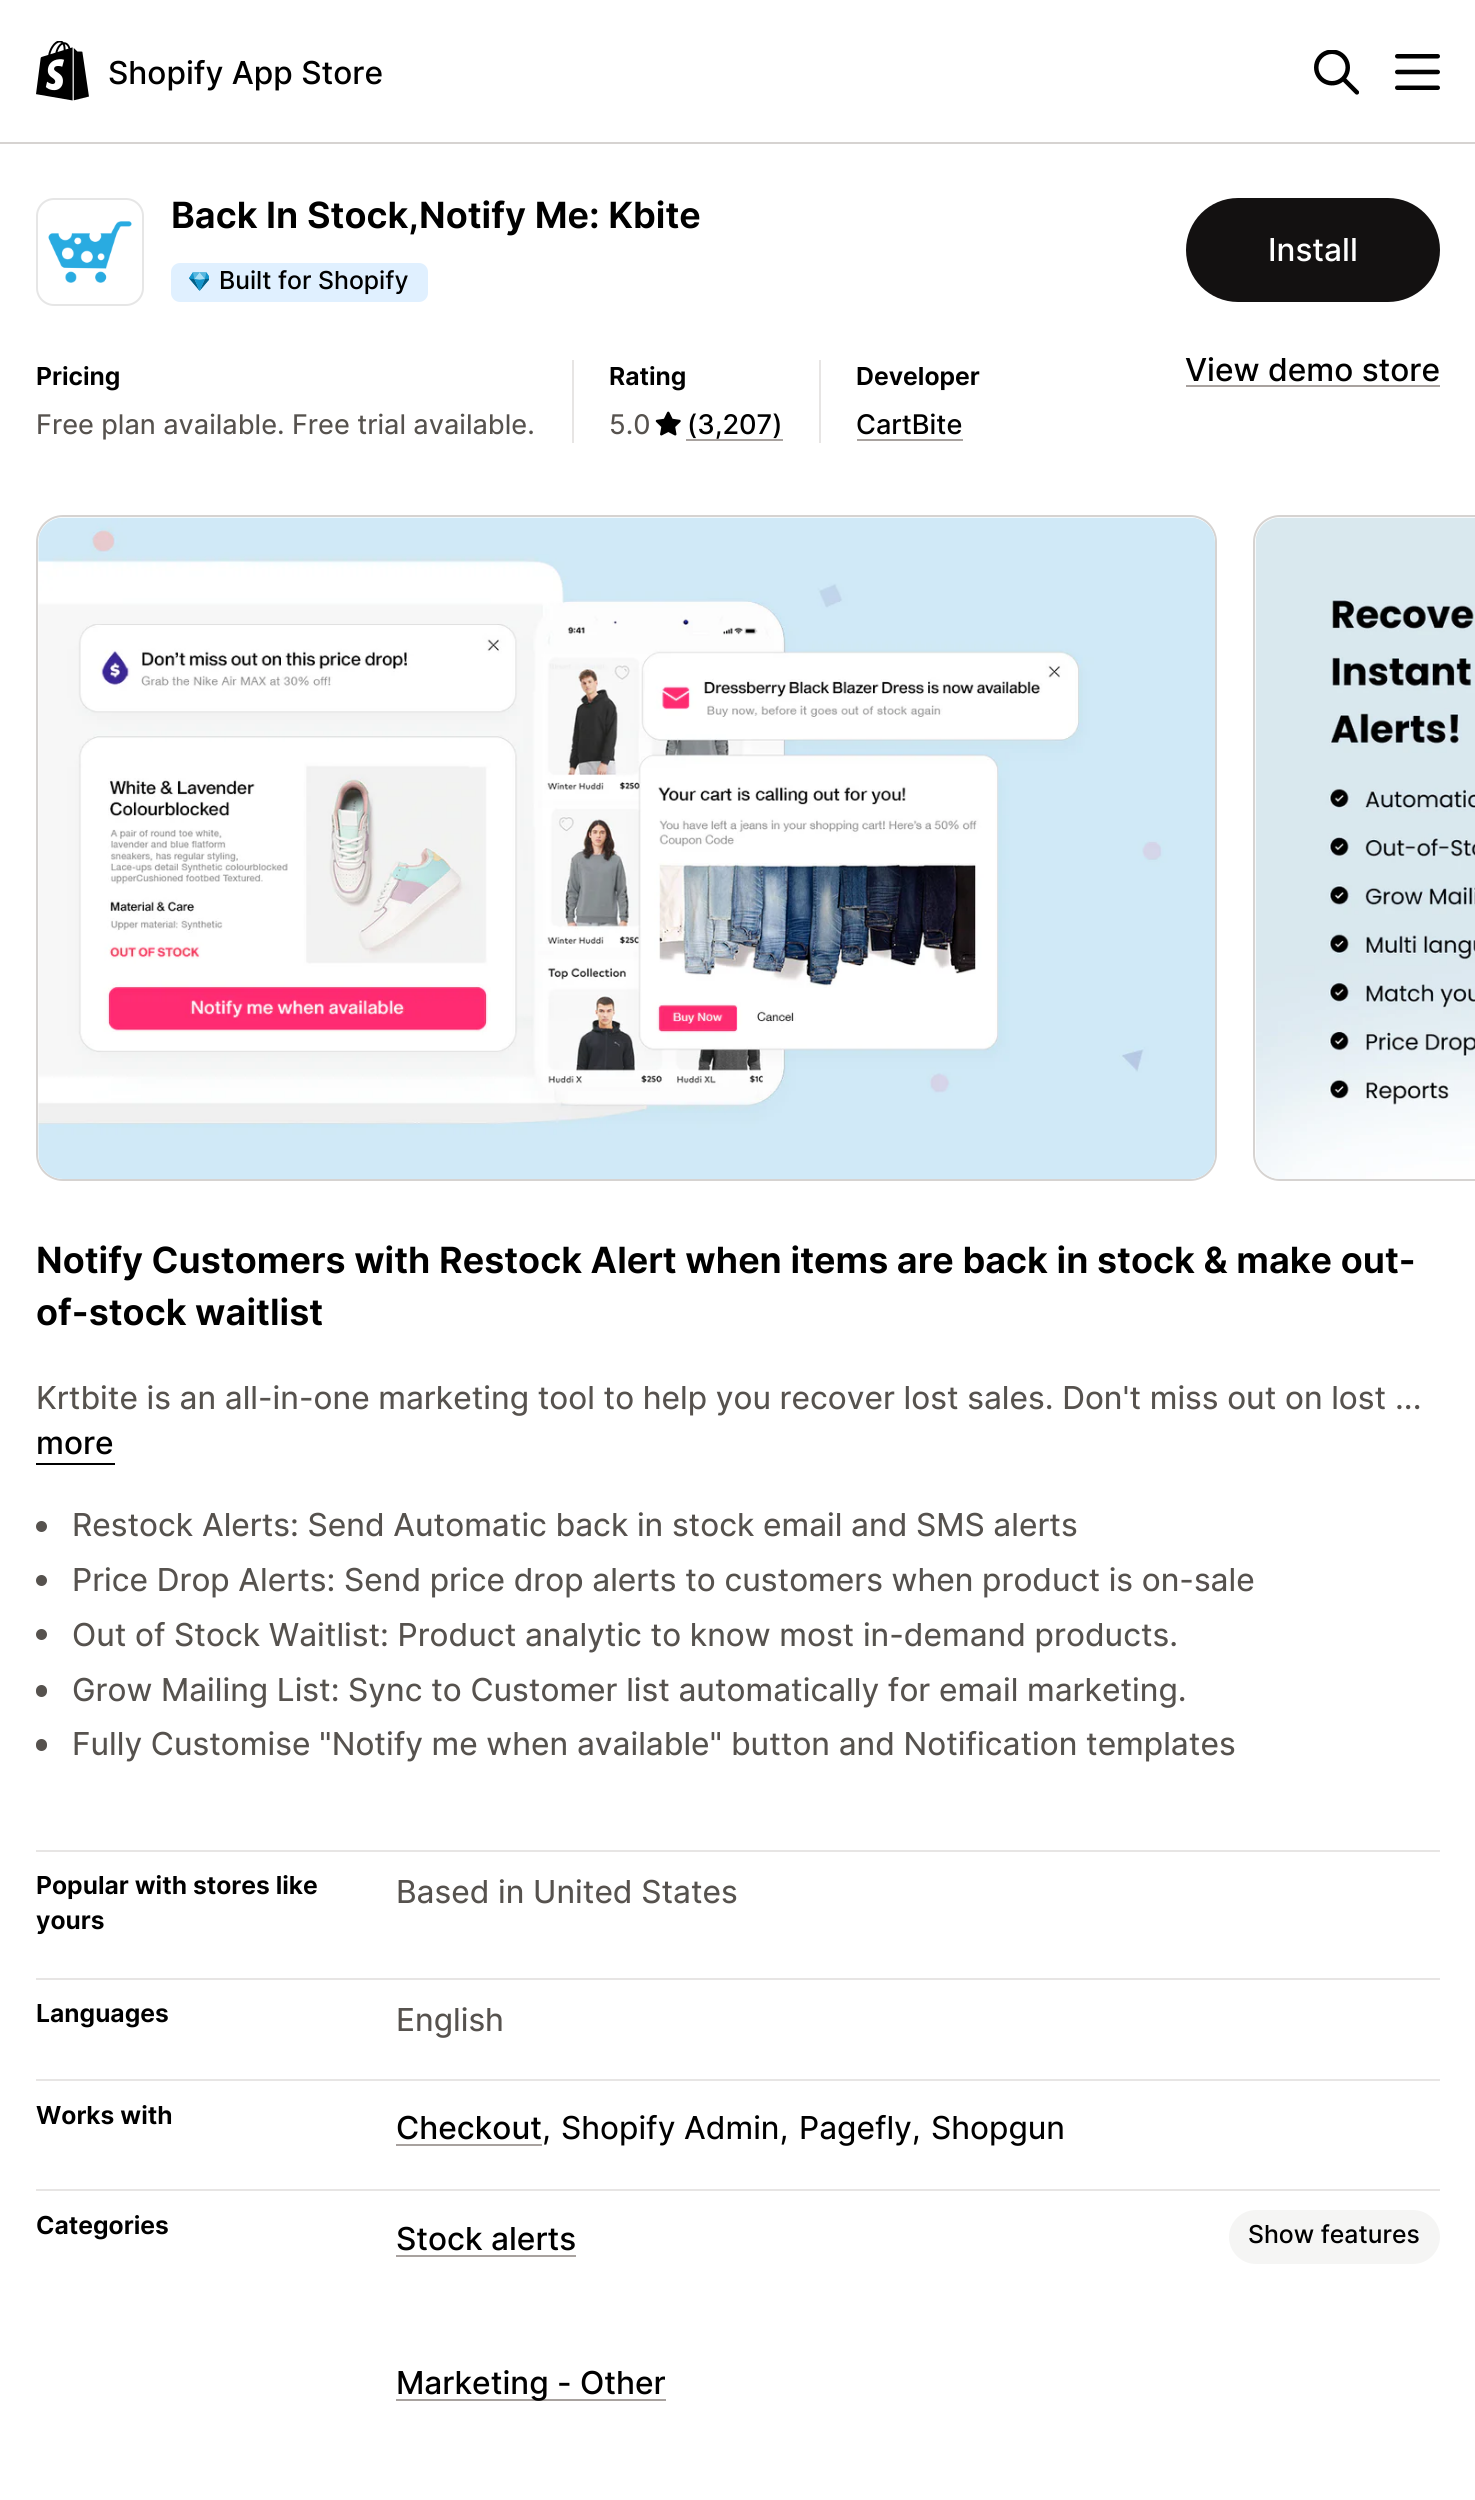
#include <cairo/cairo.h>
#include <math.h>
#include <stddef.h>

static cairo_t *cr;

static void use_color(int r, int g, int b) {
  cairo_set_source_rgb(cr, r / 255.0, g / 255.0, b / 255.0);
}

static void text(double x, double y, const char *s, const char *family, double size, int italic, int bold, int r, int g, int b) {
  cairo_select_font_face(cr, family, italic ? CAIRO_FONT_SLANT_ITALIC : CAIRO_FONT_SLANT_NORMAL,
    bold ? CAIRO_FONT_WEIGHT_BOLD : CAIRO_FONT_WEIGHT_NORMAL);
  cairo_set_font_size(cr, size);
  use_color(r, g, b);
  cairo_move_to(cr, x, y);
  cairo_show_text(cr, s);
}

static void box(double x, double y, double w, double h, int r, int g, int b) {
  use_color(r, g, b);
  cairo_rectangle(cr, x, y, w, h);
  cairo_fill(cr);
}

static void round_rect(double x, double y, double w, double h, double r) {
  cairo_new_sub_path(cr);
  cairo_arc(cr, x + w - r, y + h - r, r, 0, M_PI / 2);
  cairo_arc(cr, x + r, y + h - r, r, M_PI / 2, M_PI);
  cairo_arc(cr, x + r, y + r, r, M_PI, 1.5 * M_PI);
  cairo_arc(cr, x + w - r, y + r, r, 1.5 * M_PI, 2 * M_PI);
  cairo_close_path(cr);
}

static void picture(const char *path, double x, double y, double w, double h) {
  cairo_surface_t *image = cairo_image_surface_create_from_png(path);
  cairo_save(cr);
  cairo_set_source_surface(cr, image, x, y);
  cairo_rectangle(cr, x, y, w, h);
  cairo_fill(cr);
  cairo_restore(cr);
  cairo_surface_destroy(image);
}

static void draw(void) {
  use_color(255, 255, 255);
  cairo_paint(cr);
  box(0, 142, 1475, 2, 214, 211, 209);
  picture("img_01.png", 36, 41, 53, 60);
  picture("img_02.png", 1314, 50, 45, 45);
  picture("img_03.png", 1395, 54, 45, 36);
  picture("img_04.png", 48, 221, 84, 62);
  round_rect(37, 199, 106, 106, 17);
  use_color(230, 230, 230);
  cairo_stroke(cr);
  use_color(224, 240, 255);
  round_rect(171, 263, 257, 39, 9);
  cairo_fill(cr);
  picture("img_05.png", 189, 272, 20, 19);
  box(572, 360, 2, 83, 231, 229, 228);
  box(819, 360, 2, 83, 231, 229, 228);
  picture("img_06.png", 655, 411, 26, 25);
  box(686, 439, 97, 2, 168, 162, 159);
  box(857, 439, 106, 2, 168, 162, 159);
  use_color(19, 17, 17);
  round_rect(1186, 198, 254, 104, 52);
  cairo_fill(cr);
  box(1186, 385, 254, 2, 168, 162, 159);
  round_rect(37, 516, 1179, 664, 26);
  use_color(214, 211, 209);
  cairo_stroke(cr);
  picture("img_07.png", 38, 517, 1177, 662);
  round_rect(1254, 516, 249, 664, 26);
  cairo_stroke(cr);
  picture("img_08.png", 1255, 517, 220, 662);
  box(36, 1463, 79, 2, 0, 0, 0);
  use_color(86, 82, 78);
  cairo_arc(cr, 41.5, 1526.5, 5.5, 0, 2 * M_PI);
  cairo_fill(cr);
  cairo_arc(cr, 41.5, 1580.5, 5.5, 0, 2 * M_PI);
  cairo_fill(cr);
  cairo_arc(cr, 41.5, 1634.5, 5.5, 0, 2 * M_PI);
  cairo_fill(cr);
  round_rect(36, 1685, 11, 12, 5.5);
  cairo_fill(cr);
  round_rect(36, 1739, 11, 12, 5.5);
  cairo_fill(cr);
  box(36, 1850, 1404, 2, 231, 229, 228);
  box(36, 1978, 1404, 2, 231, 229, 228);
  box(36, 2079, 1404, 2, 231, 229, 228);
  box(396, 2144, 146, 2, 168, 162, 159);
  box(36, 2189, 1404, 2, 231, 229, 228);
  box(396, 2255, 180, 2, 168, 162, 159);
  use_color(245, 245, 244);
  round_rect(1229, 2210, 211, 54, 27);
  cairo_fill(cr);
  box(396, 2399, 270, 2, 168, 162, 159);
  text(108, 84, "Shopify App Store", "Inter Medium", 31.6, 0, 0, 0, 0, 0);
  text(171, 228, "Back In Stock,Notify Me: Kbite", "Inter SemiBold", 36.1, 0, 0, 0, 0, 0);
  text(219, 289, "Built for Shopify", "Inter Medium", 24.75, 0, 0, 0, 0, 0);
  text(36, 385, "Pricing", "Inter SemiBold", 24.75, 0, 0, 0, 0, 0);
  text(36, 434, "Free plan available. Free trial available.", "Inter", 27.1, 0, 0, 86, 82, 78);
  text(609, 385, "Rating", "Inter SemiBold", 24.75, 0, 0, 0, 0, 0);
  text(609, 434, "5.0", "Inter", 27.1, 0, 0, 86, 82, 78);
  text(687, 434, "(3,207)", "Inter Medium", 27.1, 0, 0, 0, 0, 0);
  text(856, 385, "Developer", "Inter SemiBold", 24.75, 0, 0, 0, 0, 0);
  text(856, 434, "CartBite", "Inter Medium", 27.1, 0, 0, 0, 0, 0);
  text(1268, 261, "Install", "Inter Medium", 31.6, 0, 0, 255, 255, 255);
  text(1185, 381, "View demo store", "Inter Medium", 31.6, 0, 0, 0, 0, 0);
  text(36, 1273, "Notify Customers with Restock Alert when items are back in stock & make out-", "Inter SemiBold", 36.1, 0, 0, 0, 0, 0);
  text(36, 1325, "of-stock waitlist", "Inter SemiBold", 36.1, 0, 0, 0, 0, 0);
  text(36, 1409, "Krtbite is an all-in-one marketing tool to help you recover lost sales. Don't miss out on lost", "Inter", 31.6, 0, 0, 86, 82, 78);
  text(1395, 1409, "...", "Inter", 31.6, 0, 0, 86, 82, 78);
  text(36, 1454, "more", "Inter Medium", 31.6, 0, 0, 0, 0, 0);
  text(72, 1536, "Restock Alerts: Send Automatic back in stock email and SMS alerts", "Inter", 31.6, 0, 0, 86, 82, 78);
  text(72, 1591, "Price Drop Alerts: Send price drop alerts to customers when product is on-sale", "Inter", 31.6, 0, 0, 86, 82, 78);
  text(72, 1646, "Out of Stock Waitlist: Product analytic to know most in-demand products.", "Inter", 31.6, 0, 0, 86, 82, 78);
  text(72, 1701, "Grow Mailing List: Sync to Customer list automatically for email marketing.", "Inter", 31.6, 0, 0, 86, 82, 78);
  text(72, 1755, "Fully Customise \"Notify me when available\" button and Notification templates", "Inter", 31.6, 0, 0, 86, 82, 78);
  text(36, 1894, "Popular with stores like", "Inter SemiBold", 24.75, 0, 0, 0, 0, 0);
  text(36, 1929, "yours", "Inter SemiBold", 24.75, 0, 0, 0, 0, 0);
  text(396, 1903, "Based in United States", "Inter", 31.6, 0, 0, 86, 82, 78);
  text(36, 2022, "Languages", "Inter SemiBold", 24.75, 0, 0, 0, 0, 0);
  text(396, 2031, "English", "Inter", 31.6, 0, 0, 86, 82, 78);
  text(36, 2124, "Works with", "Inter SemiBold", 24.75, 0, 0, 0, 0, 0);
  text(396, 2139, "Checkout", "Inter Medium", 31.6, 0, 0, 0, 0, 0);
  text(542, 2139, ",", "Inter", 31.6, 0, 0, 0, 0, 0);
  text(561, 2139, "Shopify Admin,", "Inter", 31.6, 0, 0, 0, 0, 0);
  text(799, 2139, "Pagefly,", "Inter", 31.6, 0, 0, 0, 0, 0);
  text(931, 2139, "Shopgun", "Inter", 31.6, 0, 0, 0, 0, 0);
  text(36, 2234, "Categories", "Inter SemiBold", 24.75, 0, 0, 0, 0, 0);
  text(396, 2250, "Stock alerts", "Inter Medium", 31.6, 0, 0, 0, 0, 0);
  text(1248, 2243, "Show features", "Inter Medium", 24.75, 0, 0, 0, 0, 0);
  text(396, 2394, "Marketing - Other", "Inter Medium", 31.6, 0, 0, 0, 0, 0);
}

int main(void) {
  cairo_surface_t *surface = cairo_image_surface_create(CAIRO_FORMAT_RGB24, 1475, 2500);
  cr = cairo_create(surface);
  cairo_font_options_t *options = cairo_font_options_create();
  cairo_font_options_set_hint_metrics(options, CAIRO_HINT_METRICS_OFF);
  cairo_font_options_set_hint_style(options, CAIRO_HINT_STYLE_NONE);
  cairo_set_font_options(cr, options);
  cairo_set_miter_limit(cr, 4);
  draw();
  cairo_surface_write_to_png(surface, "out.png");
  cairo_font_options_destroy(options);
  cairo_destroy(cr);
  cairo_surface_destroy(surface);
  return 0;
}
